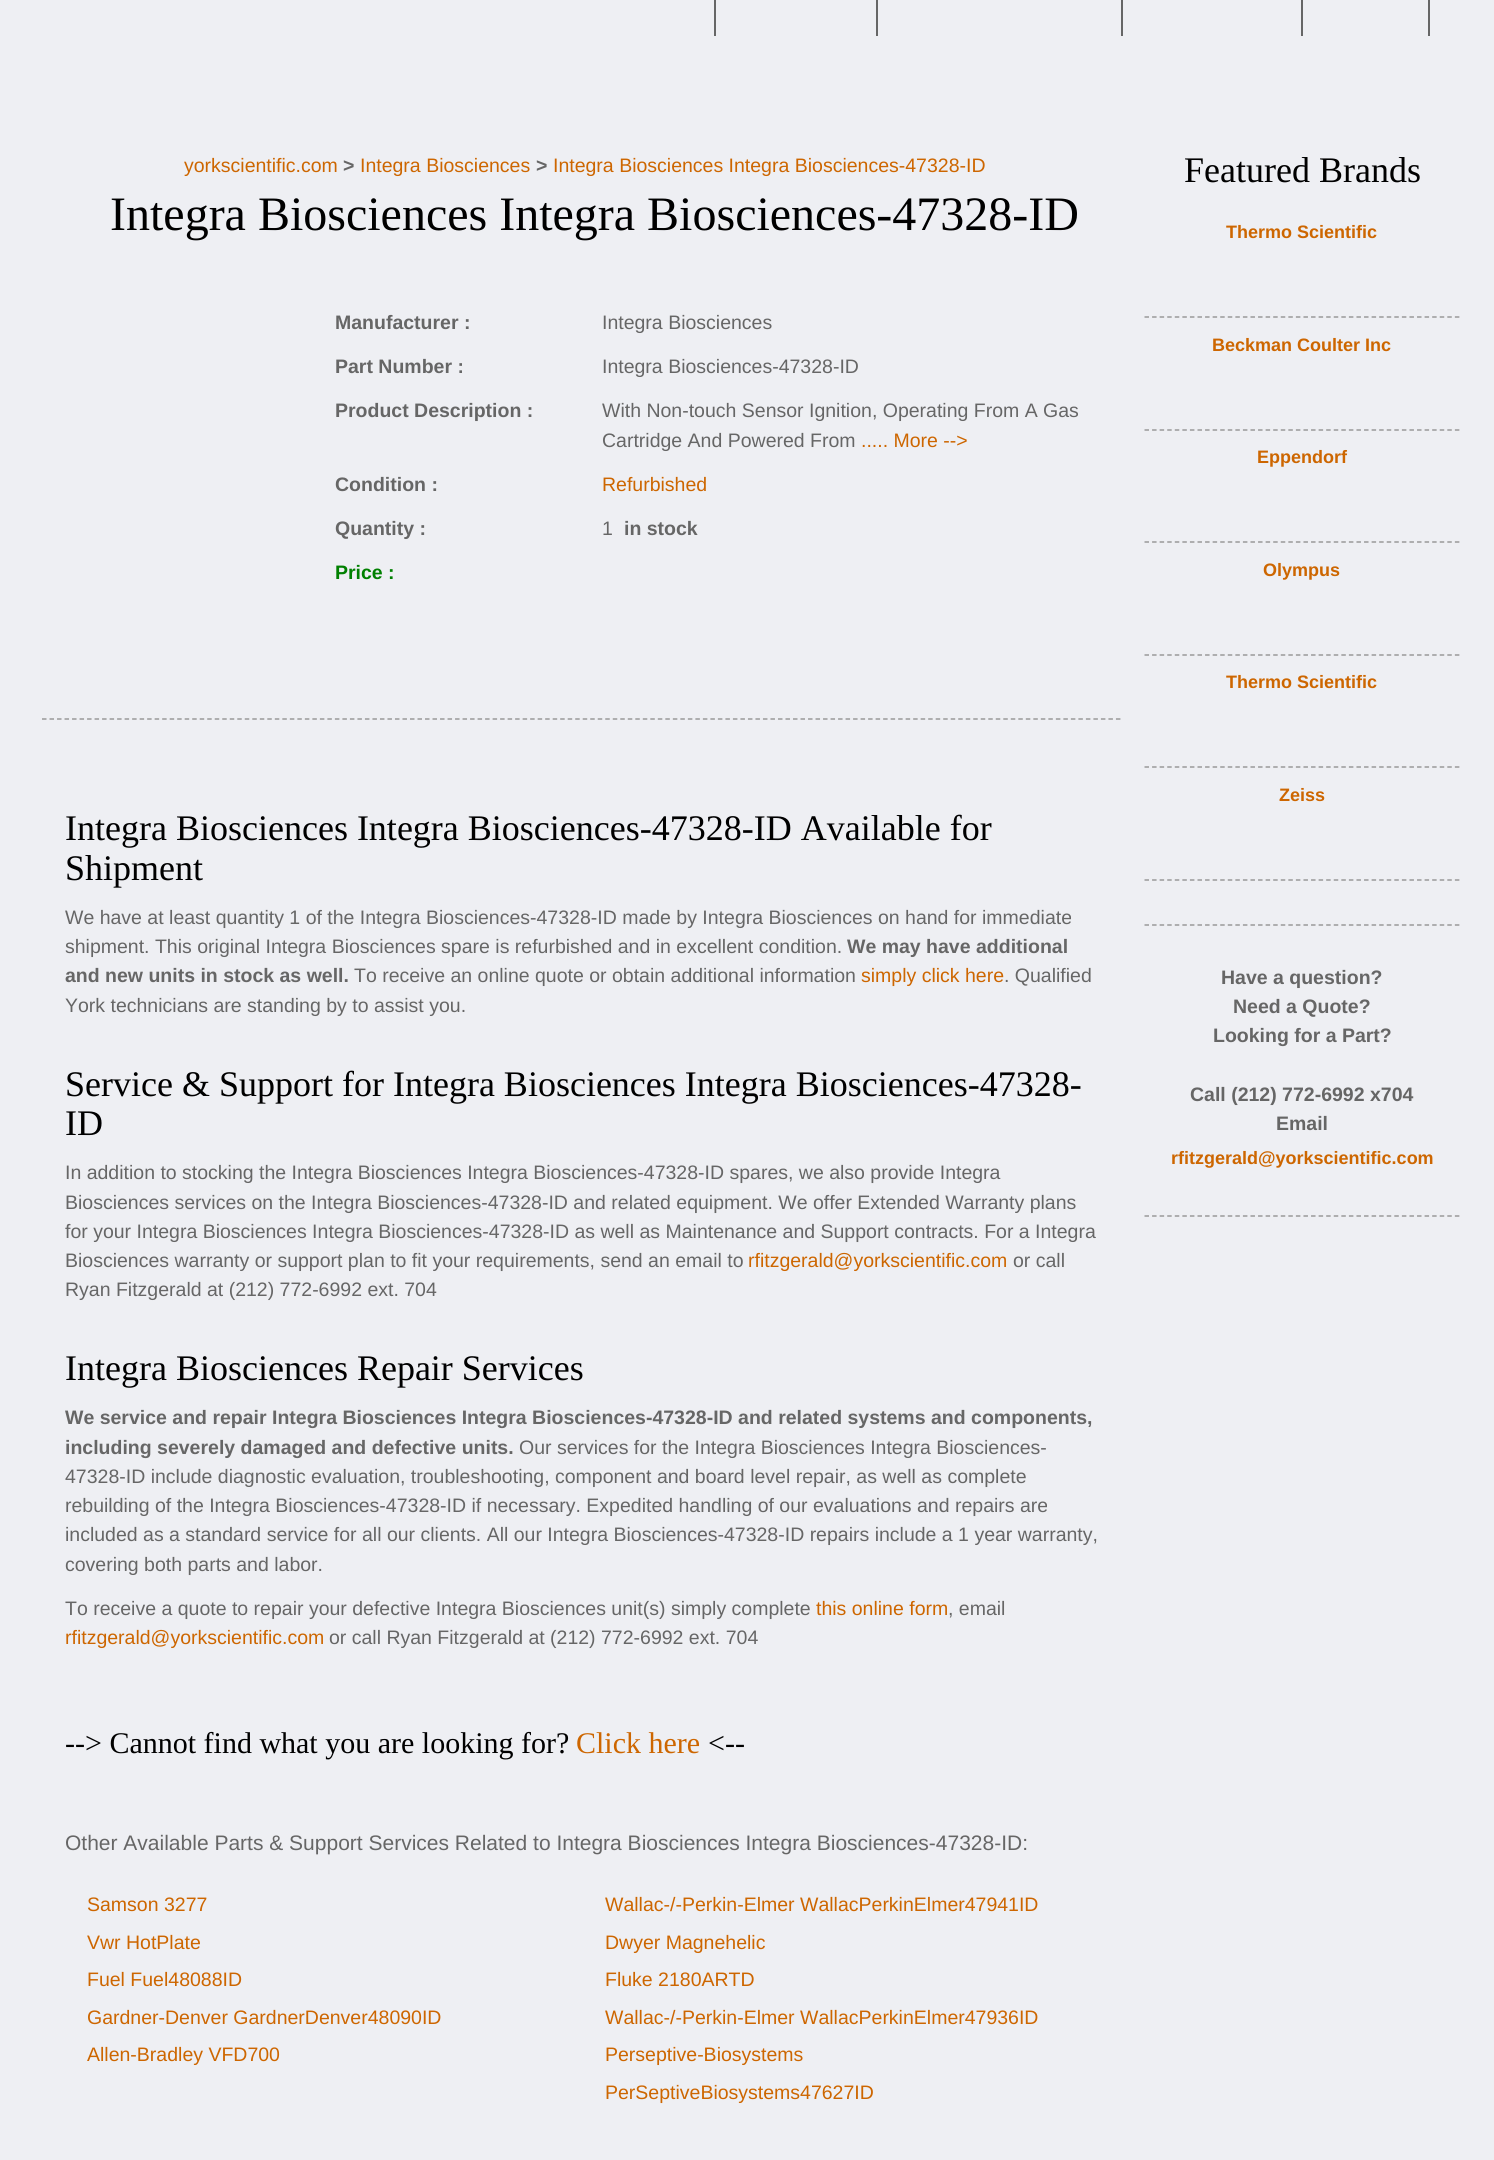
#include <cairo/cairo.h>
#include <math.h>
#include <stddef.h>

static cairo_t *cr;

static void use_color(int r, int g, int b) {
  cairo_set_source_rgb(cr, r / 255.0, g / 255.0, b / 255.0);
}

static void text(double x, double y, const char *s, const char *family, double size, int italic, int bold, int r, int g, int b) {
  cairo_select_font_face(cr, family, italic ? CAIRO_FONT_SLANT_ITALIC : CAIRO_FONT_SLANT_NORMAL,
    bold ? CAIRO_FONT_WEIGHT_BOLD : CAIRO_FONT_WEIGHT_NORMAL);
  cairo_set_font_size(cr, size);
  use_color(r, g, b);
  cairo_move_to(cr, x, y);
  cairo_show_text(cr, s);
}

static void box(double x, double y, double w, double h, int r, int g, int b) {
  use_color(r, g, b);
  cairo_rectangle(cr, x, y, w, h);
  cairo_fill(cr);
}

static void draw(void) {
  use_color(238, 239, 243);
  cairo_paint(cr);
  box(714, 0, 2, 36, 102, 102, 102);
  box(876, 0, 2, 36, 102, 102, 102);
  box(1121, 0, 2, 36, 102, 102, 102);
  box(1301, 0, 2, 36, 102, 102, 102);
  box(1428, 0, 2, 36, 102, 102, 102);
  cairo_new_path(cr);
  cairo_move_to(cr, 42, 719);
  cairo_line_to(cr, 1122, 719);
  use_color(153, 153, 153);
  cairo_set_line_width(cr, 1.5);
  cairo_set_dash(cr, (double[]){4.5, 3.01}, 2, 0);
  cairo_stroke(cr);
  cairo_new_path(cr);
  cairo_move_to(cr, 1144.5, 317);
  cairo_line_to(cr, 1459.5, 317);
  cairo_set_dash(cr, (double[]){4.5, 3.07}, 2, 0);
  cairo_stroke(cr);
  cairo_new_path(cr);
  cairo_move_to(cr, 1144.5, 430);
  cairo_line_to(cr, 1459.5, 430);
  cairo_stroke(cr);
  cairo_new_path(cr);
  cairo_move_to(cr, 1144.5, 542);
  cairo_line_to(cr, 1459.5, 542);
  cairo_stroke(cr);
  cairo_new_path(cr);
  cairo_move_to(cr, 1144.5, 655);
  cairo_line_to(cr, 1459.5, 655);
  cairo_stroke(cr);
  cairo_new_path(cr);
  cairo_move_to(cr, 1144.5, 767);
  cairo_line_to(cr, 1459.5, 767);
  cairo_stroke(cr);
  cairo_new_path(cr);
  cairo_move_to(cr, 1144.5, 880);
  cairo_line_to(cr, 1459.5, 880);
  cairo_stroke(cr);
  cairo_new_path(cr);
  cairo_move_to(cr, 1144.5, 925);
  cairo_line_to(cr, 1459.5, 925);
  cairo_stroke(cr);
  cairo_new_path(cr);
  cairo_move_to(cr, 1144.5, 1216);
  cairo_line_to(cr, 1459.5, 1216);
  cairo_stroke(cr);
  text(184, 172, "yorkscientific.com", "Liberation Sans", 19.5, 0, 0, 205, 102, 0);
  text(343, 172, ">", "Liberation Sans", 19.5, 0, 1, 102, 102, 102);
  text(360, 172, "Integra Biosciences", "Liberation Sans", 19.5, 0, 0, 205, 102, 0);
  text(536, 172, ">", "Liberation Sans", 19.5, 0, 1, 102, 102, 102);
  text(553, 172, "Integra Biosciences Integra Biosciences-47328-ID", "Liberation Sans", 19.5, 0, 0, 205, 102, 0);
  text(110, 230, "Integra Biosciences Integra Biosciences-47328-ID", "Liberation Serif", 48, 0, 0, 0, 0, 0);
  text(335, 329, "Manufacturer :", "Liberation Sans", 19.5, 0, 1, 102, 102, 102);
  text(602, 329, "Integra Biosciences", "Liberation Sans", 19.5, 0, 0, 102, 102, 102);
  text(335, 373, "Part Number :", "Liberation Sans", 19.5, 0, 1, 102, 102, 102);
  text(602, 373, "Integra Biosciences-47328-ID", "Liberation Sans", 19.5, 0, 0, 102, 102, 102);
  text(335, 417, "Product Description :", "Liberation Sans", 19.5, 0, 1, 102, 102, 102);
  text(602, 417, "With Non-touch Sensor Ignition, Operating From A Gas", "Liberation Sans", 19.5, 0, 0, 102, 102, 102);
  text(602, 447, "Cartridge And Powered From", "Liberation Sans", 19.5, 0, 0, 102, 102, 102);
  text(861, 447, "..... More -->", "Liberation Sans", 19.5, 0, 0, 205, 102, 0);
  text(335, 491, "Condition :", "Liberation Sans", 19.5, 0, 1, 102, 102, 102);
  text(602, 491, "Refurbished", "Liberation Sans", 19.5, 0, 0, 205, 102, 0);
  text(335, 535, "Quantity :", "Liberation Sans", 19.5, 0, 1, 102, 102, 102);
  text(602, 535, "1", "Liberation Sans", 19.5, 0, 0, 102, 102, 102);
  text(624, 535, "in stock", "Liberation Sans", 19.5, 0, 1, 102, 102, 102);
  text(335, 579, "Price :", "Liberation Sans", 19.5, 0, 1, 0, 128, 0);
  text(65, 840, "Integra Biosciences Integra Biosciences-47328-ID Available for", "Liberation Serif", 36, 0, 0, 0, 0, 0);
  text(65, 880, "Shipment", "Liberation Serif", 36, 0, 0, 0, 0, 0);
  text(65, 924, "We have at least quantity 1 of the Integra Biosciences-47328-ID made by Integra Biosciences on hand for immediate", "Liberation Sans", 19.5, 0, 0, 102, 102, 102);
  text(65, 953, "shipment. This original Integra Biosciences spare is refurbished and in excellent condition.", "Liberation Sans", 19.5, 0, 0, 102, 102, 102);
  text(847, 953, "We may have additional", "Liberation Sans", 19.5, 0, 1, 102, 102, 102);
  text(65, 982, "and new units in stock as well.", "Liberation Sans", 19.5, 0, 1, 102, 102, 102);
  text(354, 982, "To receive an online quote or obtain additional information", "Liberation Sans", 19.5, 0, 0, 102, 102, 102);
  text(861, 982, "simply click here", "Liberation Sans", 19.5, 0, 0, 205, 102, 0);
  text(1004, 982, ". Qualified", "Liberation Sans", 19.5, 0, 0, 102, 102, 102);
  text(65, 1012, "York technicians are standing by to assist you.", "Liberation Sans", 19.5, 0, 0, 102, 102, 102);
  text(65, 1096, "Service & Support for Integra Biosciences Integra Biosciences-47328-", "Liberation Serif", 36, 0, 0, 0, 0, 0);
  text(65, 1135, "ID", "Liberation Serif", 36, 0, 0, 0, 0, 0);
  text(65, 1179, "In addition to stocking the Integra Biosciences Integra Biosciences-47328-ID spares, we also provide Integra", "Liberation Sans", 19.5, 0, 0, 102, 102, 102);
  text(65, 1209, "Biosciences services on the Integra Biosciences-47328-ID and related equipment. We offer Extended Warranty plans", "Liberation Sans", 19.5, 0, 0, 102, 102, 102);
  text(65, 1238, "for your Integra Biosciences Integra Biosciences-47328-ID as well as Maintenance and Support contracts. For a Integra", "Liberation Sans", 19.5, 0, 0, 102, 102, 102);
  text(65, 1267, "Biosciences warranty or support plan to fit your requirements, send an email to", "Liberation Sans", 19.5, 0, 0, 102, 102, 102);
  text(748, 1267, "rfitzgerald@yorkscientific.com", "Liberation Sans", 19.5, 0, 0, 205, 102, 0);
  text(1013, 1267, "or call", "Liberation Sans", 19.5, 0, 0, 102, 102, 102);
  text(65, 1296, "Ryan Fitzgerald at (212) 772-6992 ext. 704", "Liberation Sans", 19.5, 0, 0, 102, 102, 102);
  text(65, 1380, "Integra Biosciences Repair Services", "Liberation Serif", 36, 0, 0, 0, 0, 0);
  text(65, 1424, "We service and repair Integra Biosciences Integra Biosciences-47328-ID and related systems and components,", "Liberation Sans", 19.5, 0, 1, 102, 102, 102);
  text(65, 1454, "including severely damaged and defective units.", "Liberation Sans", 19.5, 0, 1, 102, 102, 102);
  text(519, 1454, "Our services for the Integra Biosciences Integra Biosciences-", "Liberation Sans", 19.5, 0, 0, 102, 102, 102);
  text(65, 1483, "47328-ID include diagnostic evaluation, troubleshooting, component and board level repair, as well as complete", "Liberation Sans", 19.5, 0, 0, 102, 102, 102);
  text(65, 1512, "rebuilding of the Integra Biosciences-47328-ID if necessary. Expedited handling of our evaluations and repairs are", "Liberation Sans", 19.5, 0, 0, 102, 102, 102);
  text(65, 1541, "included as a standard service for all our clients. All our Integra Biosciences-47328-ID repairs include a 1 year warranty,", "Liberation Sans", 19.5, 0, 0, 102, 102, 102);
  text(65, 1571, "covering both parts and labor.", "Liberation Sans", 19.5, 0, 0, 102, 102, 102);
  text(65, 1615, "To receive a quote to repair your defective Integra Biosciences unit(s) simply complete", "Liberation Sans", 19.5, 0, 0, 102, 102, 102);
  text(816, 1615, "this online form", "Liberation Sans", 19.5, 0, 0, 205, 102, 0);
  text(948, 1615, ", email", "Liberation Sans", 19.5, 0, 0, 102, 102, 102);
  text(65, 1644, "rfitzgerald@yorkscientific.com", "Liberation Sans", 19.5, 0, 0, 205, 102, 0);
  text(329, 1644, "or call Ryan Fitzgerald at (212) 772-6992 ext. 704", "Liberation Sans", 19.5, 0, 0, 102, 102, 102);
  text(65, 1753, "--> Cannot find what you are looking for?", "Liberation Serif", 30, 0, 0, 0, 0, 0);
  text(576, 1753, "Click here", "Liberation Serif", 30, 0, 0, 205, 102, 0);
  text(708, 1753, "<--", "Liberation Serif", 30, 0, 0, 0, 0, 0);
  text(65, 1850, "Other Available Parts & Support Services Related to Integra Biosciences Integra Biosciences-47328-ID:", "Liberation Sans", 21, 0, 0, 102, 102, 102);
  text(87, 1911, "Samson 3277", "Liberation Sans", 19.5, 0, 0, 205, 102, 0);
  text(87, 1949, "Vwr HotPlate", "Liberation Sans", 19.5, 0, 0, 205, 102, 0);
  text(87, 1986, "Fuel Fuel48088ID", "Liberation Sans", 19.5, 0, 0, 205, 102, 0);
  text(87, 2024, "Gardner-Denver GardnerDenver48090ID", "Liberation Sans", 19.5, 0, 0, 205, 102, 0);
  text(87, 2061, "Allen-Bradley VFD700", "Liberation Sans", 19.5, 0, 0, 205, 102, 0);
  text(605, 1911, "Wallac-/-Perkin-Elmer WallacPerkinElmer47941ID", "Liberation Sans", 19.5, 0, 0, 205, 102, 0);
  text(605, 1949, "Dwyer Magnehelic", "Liberation Sans", 19.5, 0, 0, 205, 102, 0);
  text(605, 1986, "Fluke 2180ARTD", "Liberation Sans", 19.5, 0, 0, 205, 102, 0);
  text(605, 2024, "Wallac-/-Perkin-Elmer WallacPerkinElmer47936ID", "Liberation Sans", 19.5, 0, 0, 205, 102, 0);
  text(605, 2061, "Perseptive-Biosystems", "Liberation Sans", 19.5, 0, 0, 205, 102, 0);
  text(605, 2099, "PerSeptiveBiosystems47627ID", "Liberation Sans", 19.5, 0, 0, 205, 102, 0);
  text(1184, 182, "Featured Brands", "Liberation Serif", 36, 0, 0, 0, 0, 0);
  text(1226, 238, "Thermo Scientific", "Liberation Sans", 18, 0, 1, 205, 102, 0);
  text(1212, 351, "Beckman Coulter Inc", "Liberation Sans", 18, 0, 1, 205, 102, 0);
  text(1257, 463, "Eppendorf", "Liberation Sans", 18, 0, 1, 205, 102, 0);
  text(1263, 576, "Olympus", "Liberation Sans", 18, 0, 1, 205, 102, 0);
  text(1226, 688, "Thermo Scientific", "Liberation Sans", 18, 0, 1, 205, 102, 0);
  text(1279, 801, "Zeiss", "Liberation Sans", 18, 0, 1, 205, 102, 0);
  text(1221, 984, "Have a question?", "Liberation Sans", 19.5, 0, 1, 102, 102, 102);
  text(1233, 1013, "Need a Quote?", "Liberation Sans", 19.5, 0, 1, 102, 102, 102);
  text(1213, 1042, "Looking for a Part?", "Liberation Sans", 19.5, 0, 1, 102, 102, 102);
  text(1190, 1101, "Call (212) 772-6992 x704", "Liberation Sans", 19.5, 0, 1, 102, 102, 102);
  text(1276, 1130, "Email", "Liberation Sans", 19.5, 0, 1, 102, 102, 102);
  text(1171, 1164, "rfitzgerald@yorkscientific.com", "Liberation Sans", 18, 0, 1, 205, 102, 0);
}

int main(void) {
  cairo_surface_t *surface = cairo_image_surface_create(CAIRO_FORMAT_RGB24, 1494, 2160);
  cr = cairo_create(surface);
  cairo_font_options_t *options = cairo_font_options_create();
  cairo_font_options_set_hint_metrics(options, CAIRO_HINT_METRICS_OFF);
  cairo_font_options_set_hint_style(options, CAIRO_HINT_STYLE_NONE);
  cairo_set_font_options(cr, options);
  cairo_set_miter_limit(cr, 4);
  draw();
  cairo_surface_write_to_png(surface, "out.png");
  cairo_font_options_destroy(options);
  cairo_destroy(cr);
  cairo_surface_destroy(surface);
  return 0;
}
